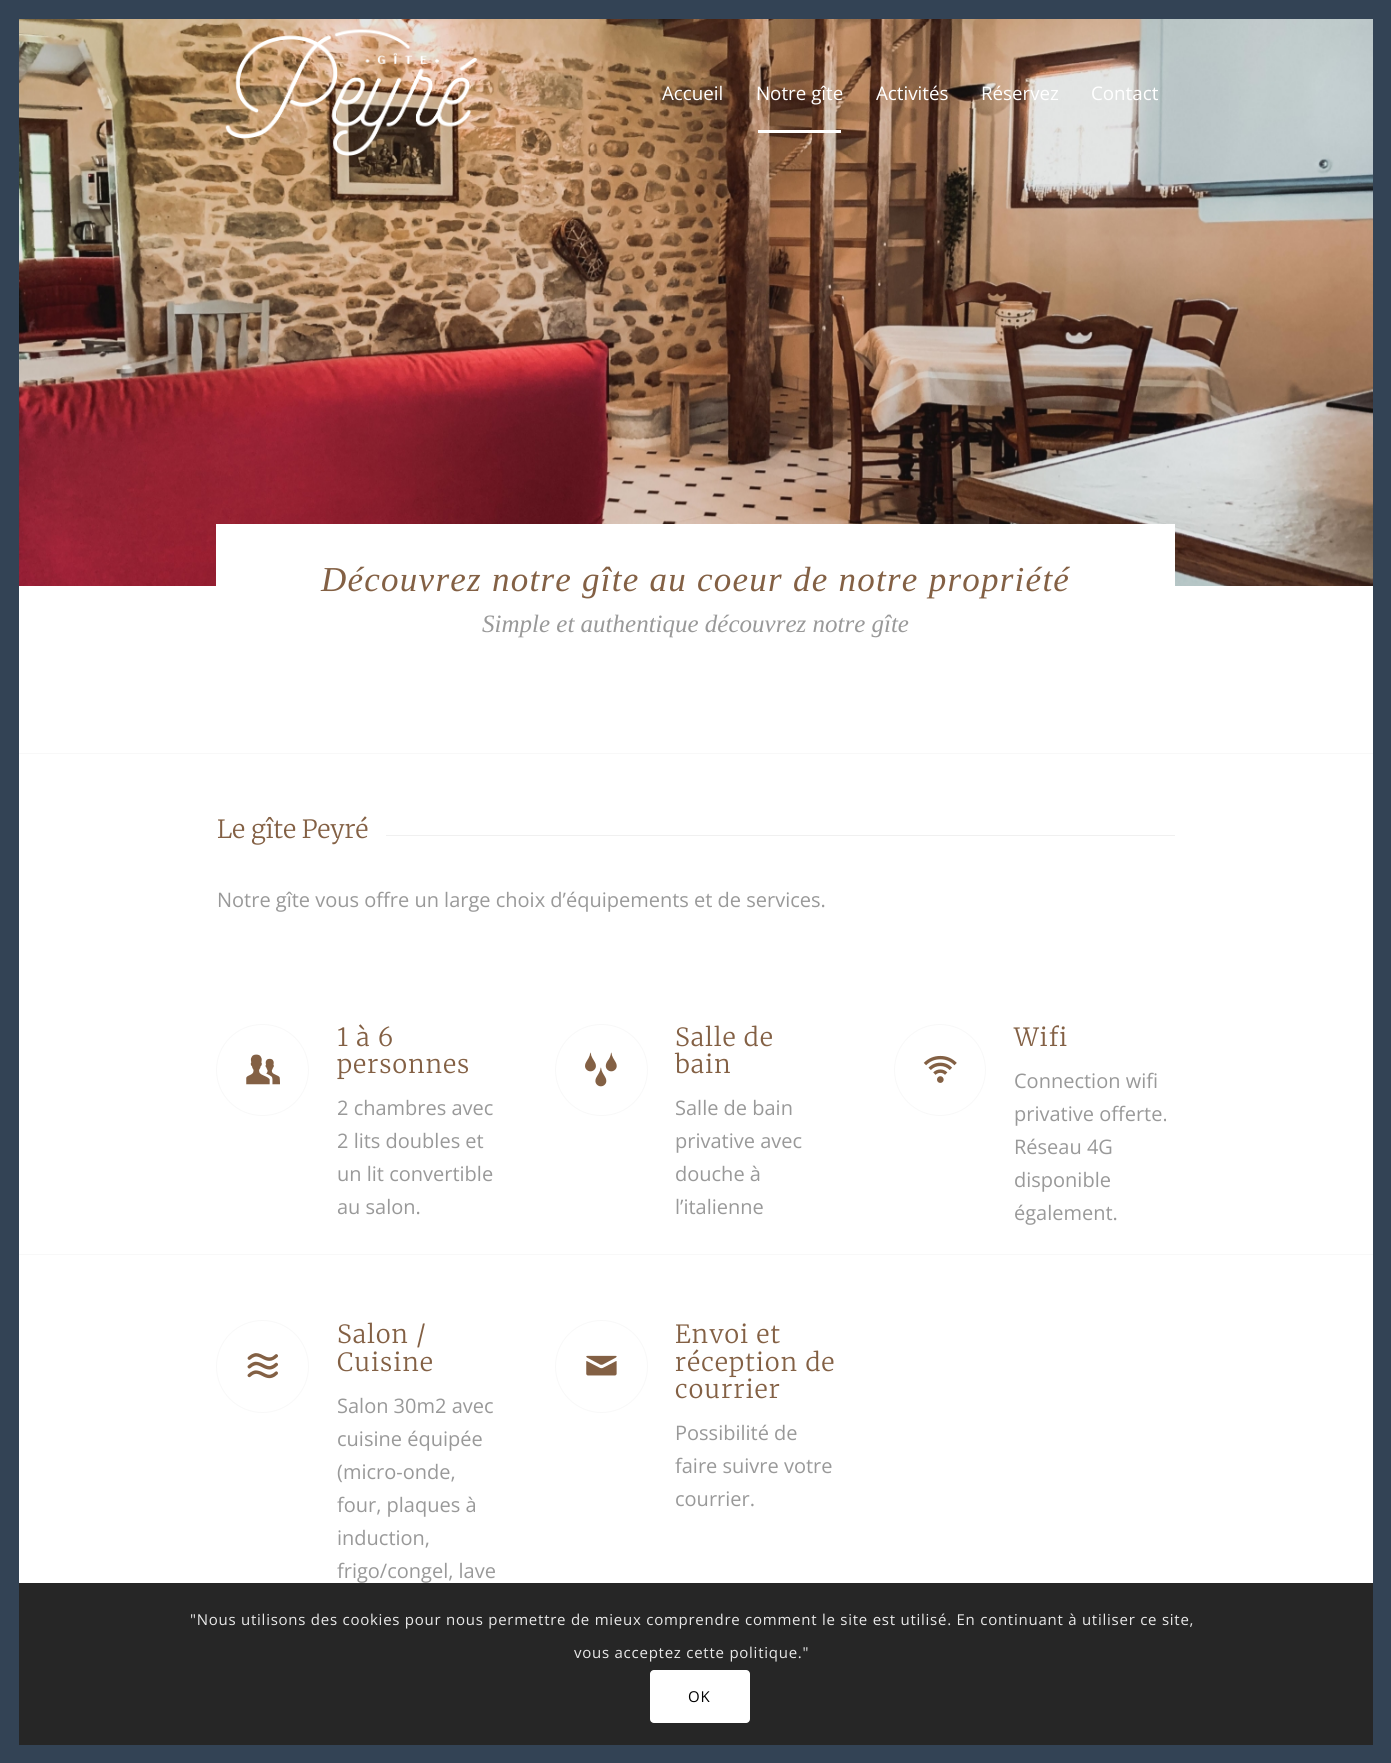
#include <cairo/cairo.h>
#include <math.h>
#include <stddef.h>

static cairo_t *cr;

static void use_color(int r, int g, int b) {
  cairo_set_source_rgb(cr, r / 255.0, g / 255.0, b / 255.0);
}

static void text(double x, double y, const char *s, const char *family, double size, int italic, int bold, int r, int g, int b) {
  cairo_select_font_face(cr, family, italic ? CAIRO_FONT_SLANT_ITALIC : CAIRO_FONT_SLANT_NORMAL,
    bold ? CAIRO_FONT_WEIGHT_BOLD : CAIRO_FONT_WEIGHT_NORMAL);
  cairo_set_font_size(cr, size);
  use_color(r, g, b);
  cairo_move_to(cr, x, y);
  cairo_show_text(cr, s);
}

static void spaced_text(double x, double y, const char *s, double letter, double word) {
  cairo_move_to(cr, x, y);
  while (*s) {
    char ch[5] = {0};
    int n = 0;
    do ch[n++] = *s++; while ((*s & 0xC0) == 0x80);
    cairo_show_text(cr, ch);
    cairo_rel_move_to(cr, letter + word * (*ch == ' '), 0);
  }
}

static void box(double x, double y, double w, double h, int r, int g, int b) {
  use_color(r, g, b);
  cairo_rectangle(cr, x, y, w, h);
  cairo_fill(cr);
}

static void round_rect(double x, double y, double w, double h, double r) {
  cairo_new_sub_path(cr);
  cairo_arc(cr, x + w - r, y + h - r, r, 0, M_PI / 2);
  cairo_arc(cr, x + r, y + h - r, r, M_PI / 2, M_PI);
  cairo_arc(cr, x + r, y + r, r, M_PI, 1.5 * M_PI);
  cairo_arc(cr, x + w - r, y + r, r, 1.5 * M_PI, 2 * M_PI);
  cairo_close_path(cr);
}

static void picture(const char *path, double x, double y, double w, double h) {
  cairo_surface_t *image = cairo_image_surface_create_from_png(path);
  cairo_save(cr);
  cairo_set_source_surface(cr, image, x, y);
  cairo_rectangle(cr, x, y, w, h);
  cairo_fill(cr);
  cairo_restore(cr);
  cairo_surface_destroy(image);
}

static void draw(void) {
  use_color(255, 255, 255);
  cairo_paint(cr);
  box(0, 0, 19, 1763, 51, 67, 85);
  box(19, 0, 1354, 19, 51, 67, 85);
  box(1373, 0, 18, 1763, 51, 67, 85);
  picture("img_02.png", 19, 19, 1354, 567);
  picture("img_01.png", 225, 29, 252, 127);
  box(758, 130, 83, 3, 255, 255, 255);
  box(19, 1583, 1354, 162, 38, 38, 38);
  box(216, 524, 959, 62, 255, 255, 255);
  box(19, 753, 1354, 1, 248, 248, 248);
  box(386, 835, 789, 1, 240, 240, 240);
  round_rect(216.5, 1024.5, 92, 91, 45.5);
  use_color(248, 248, 248);
  cairo_set_line_width(cr, 1);
  cairo_stroke(cr);
  picture("img_03.png", 246, 1054, 34, 31);
  round_rect(555.5, 1024.5, 92, 91, 45.5);
  cairo_stroke(cr);
  picture("img_04.png", 585, 1052, 32, 35);
  cairo_arc(cr, 940, 1070, 45.5, 0, 2 * M_PI);
  cairo_stroke(cr);
  picture("img_05.png", 923, 1055, 34, 28);
  box(19, 1254, 1354, 1, 248, 248, 248);
  cairo_arc(cr, 262.5, 1366.5, 46, 0, 2 * M_PI);
  cairo_stroke(cr);
  picture("img_06.png", 247, 1353, 31, 26);
  cairo_arc(cr, 601.5, 1366.5, 46, 0, 2 * M_PI);
  cairo_stroke(cr);
  picture("img_07.png", 586, 1355, 31, 21);
  use_color(255, 255, 255);
  round_rect(650, 1670, 100, 53, 4);
  cairo_fill(cr);
  box(19, 1745, 1354, 18, 51, 67, 85);
  text(662, 100, "Accueil", "Open Sans", 18.75, 0, 0, 255, 255, 255);
  text(756, 100, "Notre gîte", "Open Sans", 18.75, 0, 0, 255, 255, 255);
  text(876, 100, "Activités", "Open Sans", 18.75, 0, 0, 255, 255, 255);
  text(981, 100, "Réservez", "Open Sans", 18.75, 0, 0, 255, 255, 255);
  text(1091, 100, "Contact", "Open Sans", 18.75, 0, 0, 255, 255, 255);
  cairo_select_font_face(cr, "Liberation Serif", CAIRO_FONT_SLANT_ITALIC, CAIRO_FONT_WEIGHT_NORMAL);
  cairo_set_font_size(cr, 35);
  use_color(131, 96, 68);
  spaced_text(321, 591, "Découvrez notre gîte au coeur de notre propriété", 1.25, 0);
  text(482, 632, "Simple et authentique découvrez notre gîte", "Liberation Serif", 25, 1, 0, 153, 153, 153);
  text(217, 838, "Le gîte Peyré", "Merriweather Light", 25, 0, 0, 131, 96, 68);
  text(217, 907, "Notre gîte vous offre un large choix d’équipements et de services.", "Open Sans", 20, 0, 0, 153, 153, 153);
  cairo_select_font_face(cr, "Merriweather Light", CAIRO_FONT_SLANT_NORMAL, CAIRO_FONT_WEIGHT_NORMAL);
  cairo_set_font_size(cr, 25);
  use_color(131, 96, 68);
  spaced_text(337, 1046, "1 à 6", 1.25, 0);
  spaced_text(337, 1073, "personnes", 1.25, 0);
  text(337, 1115, "2 chambres avec", "Open Sans", 20, 0, 0, 153, 153, 153);
  text(337, 1148, "2 lits doubles et", "Open Sans", 20, 0, 0, 153, 153, 153);
  text(337, 1181, "un lit convertible", "Open Sans", 20, 0, 0, 153, 153, 153);
  text(337, 1214, "au salon.", "Open Sans", 20, 0, 0, 153, 153, 153);
  cairo_select_font_face(cr, "Merriweather Light", CAIRO_FONT_SLANT_NORMAL, CAIRO_FONT_WEIGHT_NORMAL);
  cairo_set_font_size(cr, 25);
  use_color(131, 96, 68);
  spaced_text(675, 1046, "Salle de", 1.25, 0);
  spaced_text(675, 1073, "bain", 1.25, 0);
  text(675, 1115, "Salle de bain", "Open Sans", 20, 0, 0, 153, 153, 153);
  text(675, 1148, "privative avec", "Open Sans", 20, 0, 0, 153, 153, 153);
  text(675, 1181, "douche à", "Open Sans", 20, 0, 0, 153, 153, 153);
  text(675, 1214, "l’italienne", "Open Sans", 20, 0, 0, 153, 153, 153);
  cairo_select_font_face(cr, "Merriweather Light", CAIRO_FONT_SLANT_NORMAL, CAIRO_FONT_WEIGHT_NORMAL);
  cairo_set_font_size(cr, 25);
  use_color(131, 96, 68);
  spaced_text(1014, 1046, "Wifi", 1.25, 0);
  text(1014, 1088, "Connection wifi", "Open Sans", 20, 0, 0, 153, 153, 153);
  text(1014, 1121, "privative offerte.", "Open Sans", 20, 0, 0, 153, 153, 153);
  text(1014, 1154, "Réseau 4G", "Open Sans", 20, 0, 0, 153, 153, 153);
  text(1014, 1187, "disponible", "Open Sans", 20, 0, 0, 153, 153, 153);
  text(1014, 1220, "également.", "Open Sans", 20, 0, 0, 153, 153, 153);
  cairo_select_font_face(cr, "Merriweather Light", CAIRO_FONT_SLANT_NORMAL, CAIRO_FONT_WEIGHT_NORMAL);
  cairo_set_font_size(cr, 25);
  use_color(131, 96, 68);
  spaced_text(337, 1343, "Salon /", 1.25, 0);
  spaced_text(337, 1371, "Cuisine", 1.25, 0);
  text(337, 1413, "Salon 30m2 avec", "Open Sans", 20, 0, 0, 153, 153, 153);
  text(337, 1446, "cuisine équipée", "Open Sans", 20, 0, 0, 153, 153, 153);
  text(337, 1479, "(micro-onde,", "Open Sans", 20, 0, 0, 153, 153, 153);
  text(337, 1512, "four, plaques à", "Open Sans", 20, 0, 0, 153, 153, 153);
  text(337, 1545, "induction,", "Open Sans", 20, 0, 0, 153, 153, 153);
  text(337, 1578, "frigo/congel, lave", "Open Sans", 20, 0, 0, 153, 153, 153);
  cairo_select_font_face(cr, "Merriweather Light", CAIRO_FONT_SLANT_NORMAL, CAIRO_FONT_WEIGHT_NORMAL);
  cairo_set_font_size(cr, 25);
  use_color(131, 96, 68);
  spaced_text(675, 1343, "Envoi et", 1.25, 0);
  spaced_text(675, 1371, "réception de", 1.25, 0);
  spaced_text(675, 1398, "courrier", 1.25, 0);
  text(675, 1440, "Possibilité de", "Open Sans", 20, 0, 0, 153, 153, 153);
  text(675, 1473, "faire suivre votre", "Open Sans", 20, 0, 0, 153, 153, 153);
  text(675, 1506, "courrier.", "Open Sans", 20, 0, 0, 153, 153, 153);
  cairo_set_font_size(cr, 15);
  use_color(233, 233, 233);
  spaced_text(190, 1625, "\"Nous utilisons des cookies pour nous permettre de mieux comprendre comment le site est utilisé. En continuant à utiliser ce site,", 0.75, 0);
  spaced_text(574, 1658, "vous acceptez cette politique.\"", 0.75, 0);
  use_color(0, 0, 0);
  spaced_text(688, 1702, "OK", 0.75, 0);
}

int main(void) {
  cairo_surface_t *surface = cairo_image_surface_create(CAIRO_FORMAT_RGB24, 1391, 1763);
  cr = cairo_create(surface);
  cairo_font_options_t *options = cairo_font_options_create();
  cairo_font_options_set_hint_metrics(options, CAIRO_HINT_METRICS_OFF);
  cairo_font_options_set_hint_style(options, CAIRO_HINT_STYLE_NONE);
  cairo_set_font_options(cr, options);
  cairo_set_miter_limit(cr, 4);
  draw();
  cairo_surface_write_to_png(surface, "out.png");
  cairo_font_options_destroy(options);
  cairo_destroy(cr);
  cairo_surface_destroy(surface);
  return 0;
}
